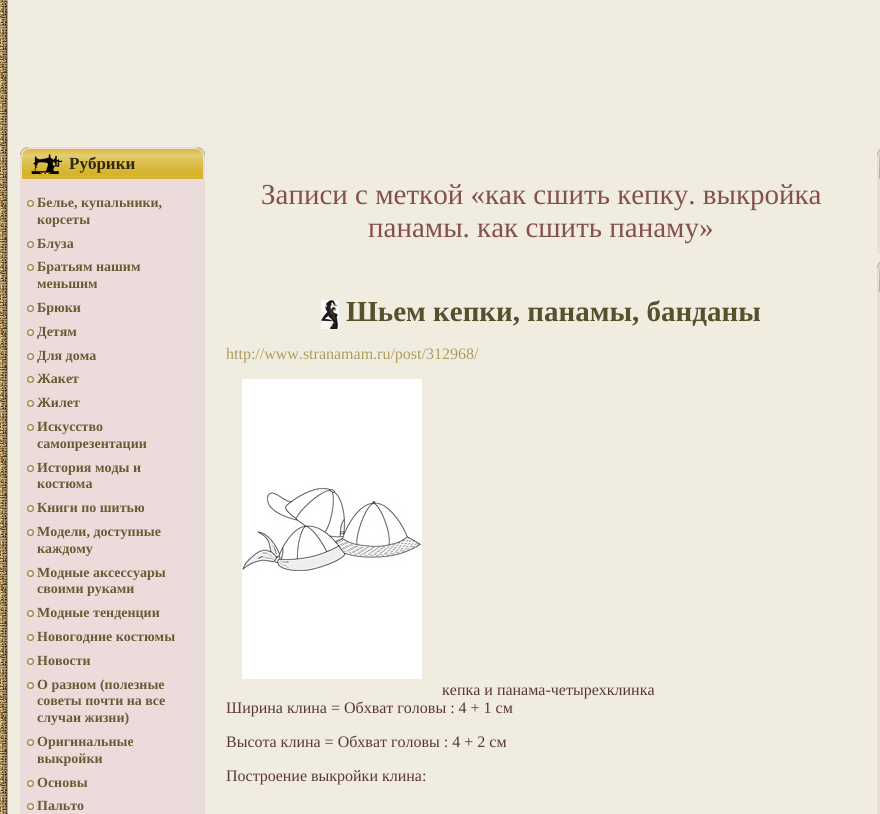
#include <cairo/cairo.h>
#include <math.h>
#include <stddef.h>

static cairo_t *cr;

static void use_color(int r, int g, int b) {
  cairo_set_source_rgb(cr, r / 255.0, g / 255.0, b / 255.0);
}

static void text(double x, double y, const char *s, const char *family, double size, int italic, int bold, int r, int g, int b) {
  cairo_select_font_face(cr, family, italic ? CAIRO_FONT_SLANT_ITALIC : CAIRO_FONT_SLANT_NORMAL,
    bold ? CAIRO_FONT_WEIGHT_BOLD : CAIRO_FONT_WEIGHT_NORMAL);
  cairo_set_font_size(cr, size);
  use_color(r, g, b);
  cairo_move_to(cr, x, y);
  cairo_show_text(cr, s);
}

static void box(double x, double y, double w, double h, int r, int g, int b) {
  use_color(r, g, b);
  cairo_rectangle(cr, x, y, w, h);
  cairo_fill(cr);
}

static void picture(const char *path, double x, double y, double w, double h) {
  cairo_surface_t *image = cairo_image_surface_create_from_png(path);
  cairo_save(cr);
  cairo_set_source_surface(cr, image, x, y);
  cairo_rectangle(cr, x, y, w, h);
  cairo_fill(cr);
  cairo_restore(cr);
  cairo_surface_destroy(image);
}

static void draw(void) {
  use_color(255, 255, 255);
  cairo_paint(cr);
  picture("img_01.png", 0, 0, 7, 814);
  picture("img_02.png", 0, 0, 39, 814);
  box(39, 0, 841, 814, 240, 237, 224);
  picture("img_03.png", 20, 147, 8, 8);
  box(28, 147, 169, 3, 235, 220, 219);
  picture("img_04.png", 197, 147, 8, 8);
  box(20, 155, 8, 659, 235, 220, 219);
  picture("img_05.png", 22, 149, 174, 30);
  box(197, 155, 8, 659, 235, 220, 219);
  picture("img_06.png", 196, 149, 7, 30);
  picture("img_07.png", 31, 154, 31, 20);
  box(28, 179, 169, 635, 235, 220, 219);
  picture("img_08.png", 27, 200, 7, 7);
  picture("img_08.png", 27, 241, 7, 7);
  picture("img_08.png", 27, 264, 7, 7);
  picture("img_08.png", 27, 305, 7, 7);
  picture("img_08.png", 27, 329, 7, 7);
  picture("img_08.png", 27, 353, 7, 7);
  picture("img_08.png", 27, 376, 7, 7);
  picture("img_08.png", 27, 400, 7, 7);
  picture("img_08.png", 27, 424, 7, 7);
  picture("img_08.png", 27, 465, 7, 7);
  picture("img_08.png", 27, 505, 7, 7);
  picture("img_08.png", 27, 529, 7, 7);
  picture("img_08.png", 27, 570, 7, 7);
  picture("img_08.png", 27, 610, 7, 7);
  picture("img_08.png", 27, 634, 7, 7);
  picture("img_08.png", 27, 658, 7, 7);
  picture("img_08.png", 27, 682, 7, 7);
  picture("img_08.png", 27, 739, 7, 7);
  picture("img_08.png", 27, 780, 7, 7);
  picture("img_08.png", 27, 803, 7, 7);
  picture("img_09.png", 321, 300, 18, 29);
  picture("img_10.png", 242, 379, 180, 300);
  picture("img_11.png", 877, 149, 3, 6);
  box(877, 155, 3, 98, 235, 220, 219);
  picture("img_12.png", 879, 153, 1, 26);
  picture("img_11.png", 877, 262, 3, 6);
  box(877, 268, 3, 546, 235, 220, 219);
  picture("img_12.png", 879, 266, 1, 26);
  text(69, 169, "Рубрики", "Liberation Serif", 17, 0, 1, 47, 39, 9);
  text(37, 207, "Белье, купальники,", "Liberation Serif", 14, 0, 1, 102, 92, 51);
  text(37, 224, "корсеты", "Liberation Serif", 14, 0, 1, 102, 92, 51);
  text(37, 248, "Блуза", "Liberation Serif", 14, 0, 1, 102, 92, 51);
  text(37, 271, "Братьям нашим", "Liberation Serif", 14, 0, 1, 102, 92, 51);
  text(37, 288, "меньшим", "Liberation Serif", 14, 0, 1, 102, 92, 51);
  text(37, 312, "Брюки", "Liberation Serif", 14, 0, 1, 102, 92, 51);
  text(37, 336, "Детям", "Liberation Serif", 14, 0, 1, 102, 92, 51);
  text(37, 360, "Для дома", "Liberation Serif", 14, 0, 1, 102, 92, 51);
  text(37, 383, "Жакет", "Liberation Serif", 14, 0, 1, 102, 92, 51);
  text(37, 407, "Жилет", "Liberation Serif", 14, 0, 1, 102, 92, 51);
  text(37, 431, "Искусство", "Liberation Serif", 14, 0, 1, 102, 92, 51);
  text(37, 448, "самопрезентации", "Liberation Serif", 14, 0, 1, 102, 92, 51);
  text(37, 472, "История моды и", "Liberation Serif", 14, 0, 1, 102, 92, 51);
  text(37, 488, "костюма", "Liberation Serif", 14, 0, 1, 102, 92, 51);
  text(37, 512, "Книги по шитью", "Liberation Serif", 14, 0, 1, 102, 92, 51);
  text(37, 536, "Модели, доступные", "Liberation Serif", 14, 0, 1, 102, 92, 51);
  text(37, 553, "каждому", "Liberation Serif", 14, 0, 1, 102, 92, 51);
  text(37, 577, "Модные аксессуары", "Liberation Serif", 14, 0, 1, 102, 92, 51);
  text(37, 593, "своими руками", "Liberation Serif", 14, 0, 1, 102, 92, 51);
  text(37, 617, "Модные тенденции", "Liberation Serif", 14, 0, 1, 102, 92, 51);
  text(37, 641, "Новогодние костюмы", "Liberation Serif", 14, 0, 1, 102, 92, 51);
  text(37, 665, "Новости", "Liberation Serif", 14, 0, 1, 102, 92, 51);
  text(37, 689, "О разном (полезные", "Liberation Serif", 14, 0, 1, 102, 92, 51);
  text(37, 705, "советы почти на все", "Liberation Serif", 14, 0, 1, 102, 92, 51);
  text(37, 722, "случаи жизни)", "Liberation Serif", 14, 0, 1, 102, 92, 51);
  text(37, 746, "Оригинальные", "Liberation Serif", 14, 0, 1, 102, 92, 51);
  text(37, 763, "выкройки", "Liberation Serif", 14, 0, 1, 102, 92, 51);
  text(37, 787, "Основы", "Liberation Serif", 14, 0, 1, 102, 92, 51);
  text(37, 810, "Пальто", "Liberation Serif", 14, 0, 1, 102, 92, 51);
  text(261, 204, "Записи с меткой «как сшить кепку. выкройка", "Liberation Serif", 29, 0, 0, 133, 80, 76);
  text(368, 237, "панамы. как сшить панаму»", "Liberation Serif", 29, 0, 0, 133, 80, 76);
  text(346, 321, "Шьем кепки, панамы, банданы", "Liberation Serif", 29, 0, 1, 88, 79, 44);
  text(226, 359, "http://www.stranamam.ru/post/312968/", "Liberation Serif", 16, 0, 0, 173, 157, 92);
  text(442, 695, "кепка и панама-четырехклинка", "Liberation Serif", 16, 0, 0, 91, 55, 52);
  text(226, 713, "Ширина клина = Обхват головы : 4 + 1 см", "Liberation Serif", 16, 0, 0, 91, 55, 52);
  text(226, 747, "Высота клина = Обхват головы : 4 + 2 см", "Liberation Serif", 16, 0, 0, 91, 55, 52);
  text(226, 781, "Построение выкройки клина:", "Liberation Serif", 16, 0, 0, 91, 55, 52);
}

int main(void) {
  cairo_surface_t *surface = cairo_image_surface_create(CAIRO_FORMAT_RGB24, 880, 814);
  cr = cairo_create(surface);
  cairo_font_options_t *options = cairo_font_options_create();
  cairo_font_options_set_hint_metrics(options, CAIRO_HINT_METRICS_OFF);
  cairo_font_options_set_hint_style(options, CAIRO_HINT_STYLE_NONE);
  cairo_set_font_options(cr, options);
  cairo_set_miter_limit(cr, 4);
  draw();
  cairo_surface_write_to_png(surface, "out.png");
  cairo_font_options_destroy(options);
  cairo_destroy(cr);
  cairo_surface_destroy(surface);
  return 0;
}
